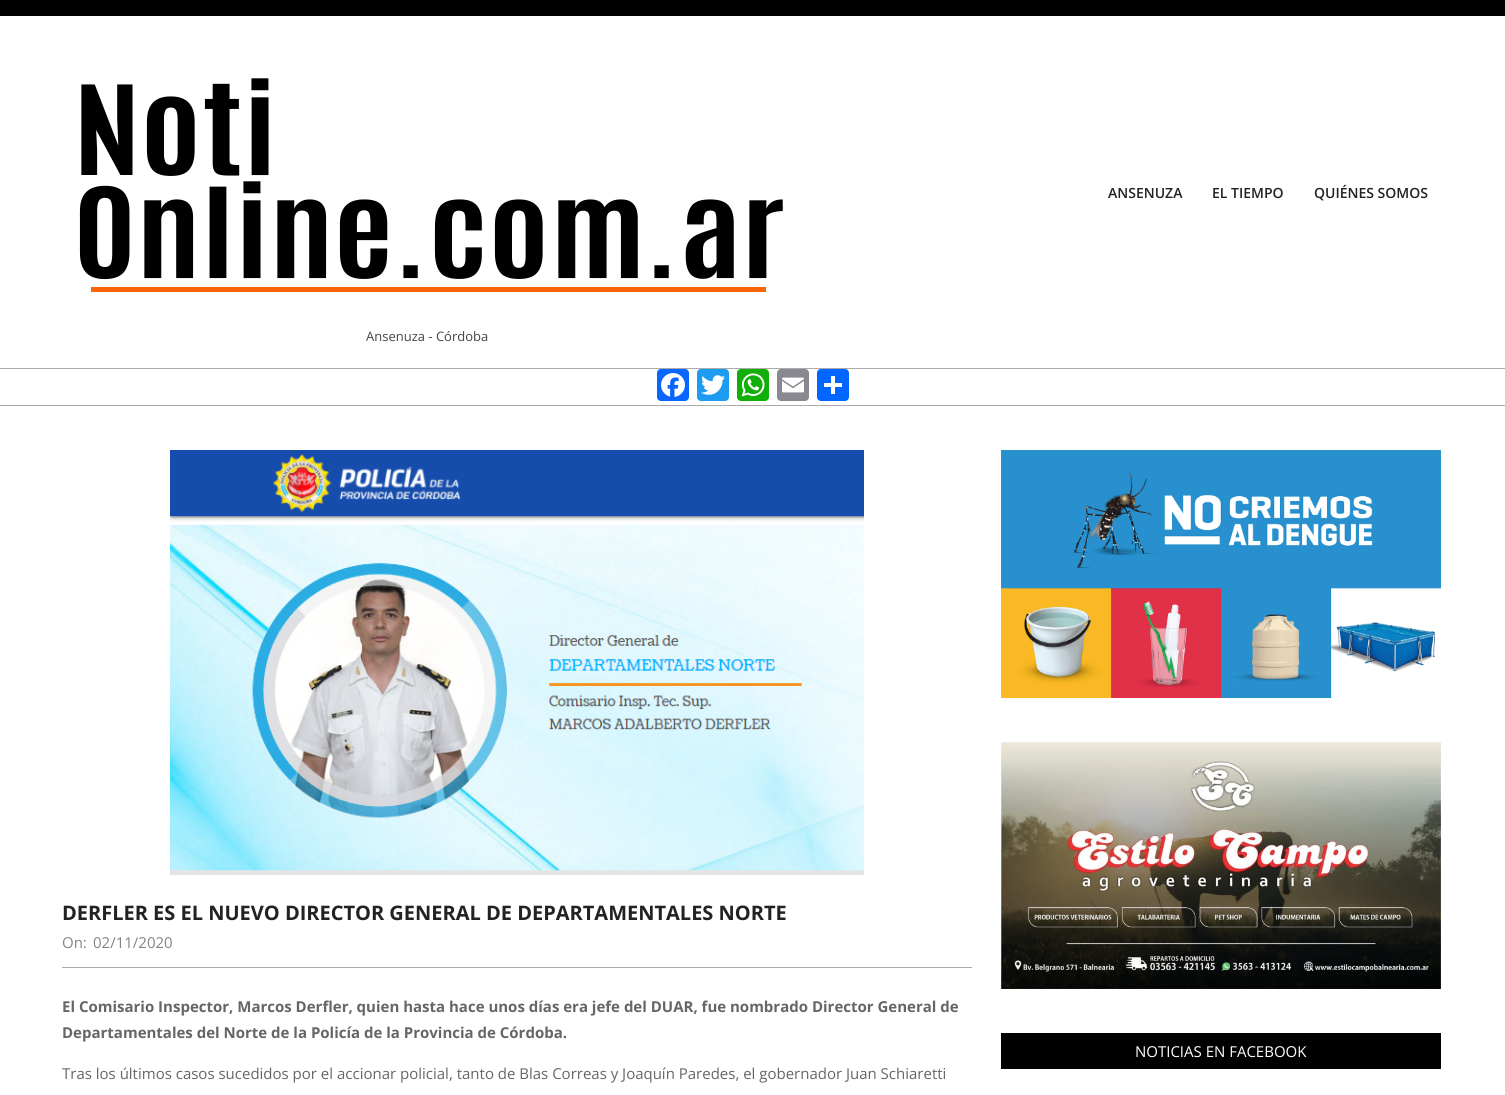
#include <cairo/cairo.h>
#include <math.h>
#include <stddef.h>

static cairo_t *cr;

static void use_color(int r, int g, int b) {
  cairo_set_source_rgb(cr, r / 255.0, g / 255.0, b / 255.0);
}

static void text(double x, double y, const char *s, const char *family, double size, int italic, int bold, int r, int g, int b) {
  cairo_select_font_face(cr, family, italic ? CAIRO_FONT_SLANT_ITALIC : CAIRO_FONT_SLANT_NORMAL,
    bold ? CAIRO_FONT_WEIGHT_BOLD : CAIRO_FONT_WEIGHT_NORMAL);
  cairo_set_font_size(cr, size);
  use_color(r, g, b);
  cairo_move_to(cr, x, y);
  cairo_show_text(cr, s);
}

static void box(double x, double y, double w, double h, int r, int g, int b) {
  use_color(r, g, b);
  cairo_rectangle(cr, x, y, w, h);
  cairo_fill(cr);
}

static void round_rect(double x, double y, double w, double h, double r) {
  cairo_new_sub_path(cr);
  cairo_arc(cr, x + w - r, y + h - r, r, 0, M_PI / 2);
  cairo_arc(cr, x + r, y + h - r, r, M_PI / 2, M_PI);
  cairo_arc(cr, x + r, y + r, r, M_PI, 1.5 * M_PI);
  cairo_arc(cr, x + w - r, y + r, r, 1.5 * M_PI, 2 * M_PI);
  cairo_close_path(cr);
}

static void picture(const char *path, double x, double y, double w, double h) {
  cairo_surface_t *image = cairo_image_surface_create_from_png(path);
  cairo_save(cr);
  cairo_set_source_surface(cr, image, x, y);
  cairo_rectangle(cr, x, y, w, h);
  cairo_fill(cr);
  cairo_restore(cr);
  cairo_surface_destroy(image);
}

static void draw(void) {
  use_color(255, 255, 255);
  cairo_paint(cr);
  box(0, 0, 1505, 16, 0, 0, 0);
  box(0, 368, 1505, 1, 171, 171, 171);
  picture("img_01.png", 79, 78, 704, 214);
  box(0, 405, 1505, 1, 171, 171, 171);
  use_color(8, 102, 255);
  round_rect(657, 369, 32, 32, 4);
  cairo_fill(cr);
  picture("img_02.png", 661, 373, 24, 24);
  use_color(29, 155, 240);
  round_rect(697, 369, 32, 32, 4);
  cairo_fill(cr);
  picture("img_03.png", 701, 375, 24, 20);
  use_color(18, 175, 10);
  round_rect(737, 369, 32, 32, 4);
  cairo_fill(cr);
  picture("img_04.png", 741, 373, 24, 24);
  use_color(136, 137, 144);
  round_rect(777, 369, 32, 32, 4);
  cairo_fill(cr);
  picture("img_05.png", 782, 377, 22, 16);
  use_color(1, 102, 255);
  round_rect(817, 369, 32, 32, 4);
  cairo_fill(cr);
  box(831, 376, 4, 18, 255, 255, 255);
  box(824, 383, 18, 4, 255, 255, 255);
  picture("img_06.png", 170, 450, 694, 425);
  box(62, 967, 910, 1, 171, 171, 171);
  picture("img_07.png", 1001, 450, 440, 248);
  picture("img_08.png", 1001, 742, 440, 247);
  box(1001, 1033, 440, 36, 0, 0, 0);
  text(1108, 198, "ANSENUZA", "Open Sans SemiBold", 14, 0, 0, 34, 34, 34);
  text(1212, 198, "EL TIEMPO", "Open Sans SemiBold", 14, 0, 0, 34, 34, 34);
  text(1314, 198, "QUIÉNES SOMOS", "Open Sans SemiBold", 14, 0, 0, 34, 34, 34);
  text(366, 341, "Ansenuza - Córdoba", "Open Sans", 13, 0, 0, 68, 68, 68);
  text(62, 920, "DERFLER ES EL NUEVO DIRECTOR GENERAL DE DEPARTAMENTALES NORTE", "Open Sans", 20, 0, 1, 34, 34, 34);
  text(62, 948, "On:", "Open Sans", 15, 0, 0, 133, 133, 133);
  text(93, 948, "02/11/2020", "Open Sans", 15, 0, 0, 133, 133, 133);
  text(62, 1012, "El Comisario Inspector, Marcos Derfler, quien hasta hace unos días era jefe del DUAR, fue nombrado Director General de", "Open Sans", 15, 0, 1, 102, 102, 102);
  text(62, 1038, "Departamentales del Norte de la Policía de la Provincia de Córdoba.", "Open Sans", 15, 0, 1, 102, 102, 102);
  text(62, 1079, "Tras los últimos casos sucedidos por el accionar policial, tanto de Blas Correas y Joaquín Paredes, el gobernador Juan Schiaretti", "Open Sans", 15, 0, 0, 102, 102, 102);
  text(1135, 1057, "NOTICIAS EN FACEBOOK", "Open Sans", 15, 0, 0, 255, 255, 255);
}

int main(void) {
  cairo_surface_t *surface = cairo_image_surface_create(CAIRO_FORMAT_RGB24, 1505, 1095);
  cr = cairo_create(surface);
  cairo_font_options_t *options = cairo_font_options_create();
  cairo_font_options_set_hint_metrics(options, CAIRO_HINT_METRICS_OFF);
  cairo_font_options_set_hint_style(options, CAIRO_HINT_STYLE_NONE);
  cairo_set_font_options(cr, options);
  cairo_set_miter_limit(cr, 4);
  draw();
  cairo_surface_write_to_png(surface, "out.png");
  cairo_font_options_destroy(options);
  cairo_destroy(cr);
  cairo_surface_destroy(surface);
  return 0;
}
